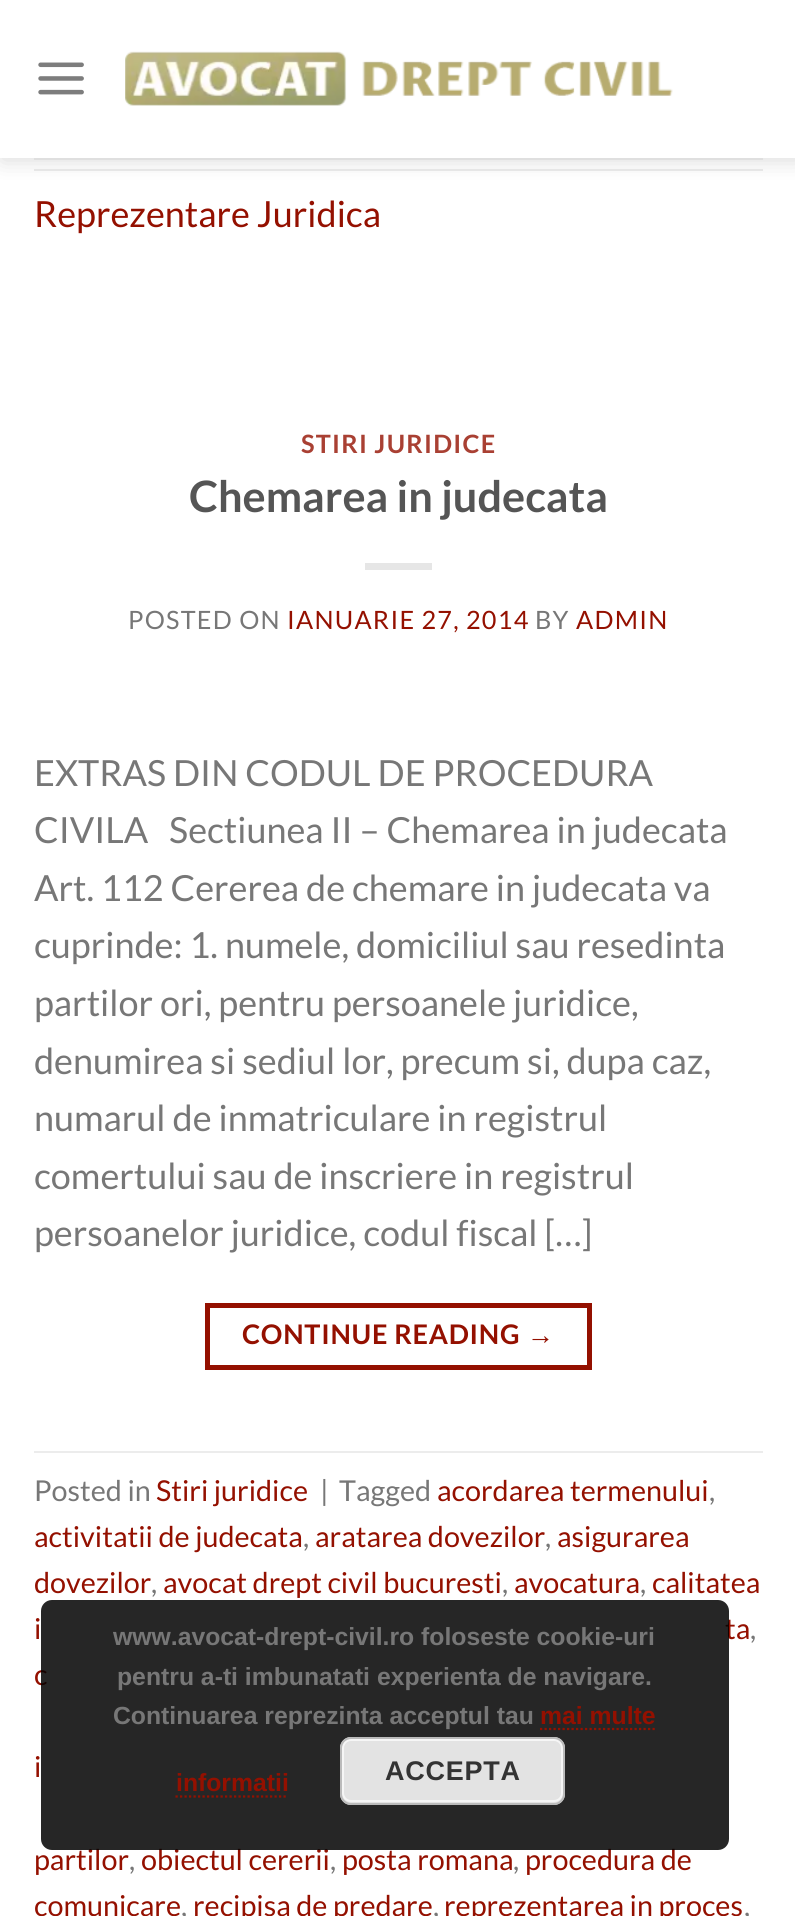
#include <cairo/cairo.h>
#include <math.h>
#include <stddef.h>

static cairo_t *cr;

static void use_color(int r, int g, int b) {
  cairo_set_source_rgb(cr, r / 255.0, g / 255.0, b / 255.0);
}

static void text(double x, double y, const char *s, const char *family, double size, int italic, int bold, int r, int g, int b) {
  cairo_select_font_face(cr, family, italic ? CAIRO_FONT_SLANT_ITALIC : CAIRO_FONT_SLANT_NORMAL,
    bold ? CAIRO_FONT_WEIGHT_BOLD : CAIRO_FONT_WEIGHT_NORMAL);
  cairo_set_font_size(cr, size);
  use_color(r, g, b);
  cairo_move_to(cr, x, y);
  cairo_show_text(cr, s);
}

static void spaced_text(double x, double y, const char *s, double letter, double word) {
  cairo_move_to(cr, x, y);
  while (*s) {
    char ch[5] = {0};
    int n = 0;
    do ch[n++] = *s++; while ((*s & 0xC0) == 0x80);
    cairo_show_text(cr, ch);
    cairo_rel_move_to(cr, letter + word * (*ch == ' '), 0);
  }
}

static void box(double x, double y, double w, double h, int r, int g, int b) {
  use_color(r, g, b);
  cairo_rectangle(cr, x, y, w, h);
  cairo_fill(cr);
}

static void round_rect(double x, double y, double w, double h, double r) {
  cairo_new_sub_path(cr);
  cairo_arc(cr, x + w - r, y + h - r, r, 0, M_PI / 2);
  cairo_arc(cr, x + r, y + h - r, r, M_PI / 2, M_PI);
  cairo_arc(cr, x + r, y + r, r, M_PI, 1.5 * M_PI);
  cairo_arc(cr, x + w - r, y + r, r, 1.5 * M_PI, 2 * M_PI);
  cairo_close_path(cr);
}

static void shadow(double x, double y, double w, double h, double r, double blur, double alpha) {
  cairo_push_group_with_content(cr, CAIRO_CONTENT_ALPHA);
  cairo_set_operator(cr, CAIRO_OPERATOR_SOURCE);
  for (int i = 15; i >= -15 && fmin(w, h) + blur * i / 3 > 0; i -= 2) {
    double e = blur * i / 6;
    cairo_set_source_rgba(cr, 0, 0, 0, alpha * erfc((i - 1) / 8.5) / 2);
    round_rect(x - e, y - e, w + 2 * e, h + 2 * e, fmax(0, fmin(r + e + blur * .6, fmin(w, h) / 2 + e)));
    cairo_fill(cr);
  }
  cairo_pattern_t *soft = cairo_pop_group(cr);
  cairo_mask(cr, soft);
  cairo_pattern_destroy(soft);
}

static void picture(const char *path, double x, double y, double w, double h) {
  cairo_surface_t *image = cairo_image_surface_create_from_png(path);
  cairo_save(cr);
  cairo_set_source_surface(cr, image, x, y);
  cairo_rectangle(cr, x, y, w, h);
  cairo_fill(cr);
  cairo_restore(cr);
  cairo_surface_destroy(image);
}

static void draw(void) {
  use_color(255, 255, 255);
  cairo_paint(cr);
  box(34, 169, 729, 2, 236, 236, 236);
  use_color(0, 0, 0);
  shadow(2, 2, 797, 158, 0, 11, 0.15);
  box(0, 0, 795, 158, 255, 255, 255);
  picture("img_01.png", 38, 62, 46, 33);
  picture("img_02.png", 125, 51, 548, 55);
  box(34, 158, 729, 2, 223, 223, 223);
  box(365, 563, 67, 7, 230, 230, 230);
  cairo_rectangle(cr, 207.5, 1305.5, 382, 62);
  use_color(148, 16, 0);
  cairo_set_line_width(cr, 5);
  cairo_stroke(cr);
  box(34, 1451, 729, 2, 236, 236, 236);
  text(34, 227, "Reprezentare Juridica", "Lato", 36, 0, 0, 148, 16, 0);
  cairo_select_font_face(cr, "Lato", CAIRO_FONT_SLANT_NORMAL, CAIRO_FONT_WEIGHT_BOLD);
  cairo_set_font_size(cr, 25.25);
  use_color(169, 64, 51);
  spaced_text(301, 453, "STIRI JURIDICE", 1.25, 0);
  text(189, 512, "Chemarea in judecata", "Lato", 43.25, 0, 1, 85, 85, 85);
  cairo_select_font_face(cr, "Lato", CAIRO_FONT_SLANT_NORMAL, CAIRO_FONT_WEIGHT_NORMAL);
  cairo_set_font_size(cr, 25.25);
  use_color(119, 119, 119);
  spaced_text(128, 629, "POSTED ON", 1.25, 0);
  use_color(148, 16, 0);
  spaced_text(287, 629, "IANUARIE 27, 2014", 1.25, 0);
  use_color(119, 119, 119);
  spaced_text(535, 629, "BY", 1.25, 0);
  use_color(148, 16, 0);
  spaced_text(576, 629, "ADMIN", 1.25, 0);
  text(34, 786, "EXTRAS DIN CODUL DE PROCEDURA", "Lato", 36, 0, 0, 119, 119, 119);
  text(34, 843, "CIVILA   Sectiunea II – Chemarea in judecata", "Lato", 36, 0, 0, 119, 119, 119);
  text(34, 901, "Art. 112 Cererea de chemare in judecata va", "Lato", 36, 0, 0, 119, 119, 119);
  text(34, 958, "cuprinde: 1. numele, domiciliul sau resedinta", "Lato", 36, 0, 0, 119, 119, 119);
  text(34, 1016, "partilor ori, pentru persoanele juridice,", "Lato", 36, 0, 0, 119, 119, 119);
  text(34, 1074, "denumirea si sediul lor, precum si, dupa caz,", "Lato", 36, 0, 0, 119, 119, 119);
  text(34, 1131, "numarul de inmatriculare in registrul", "Lato", 36, 0, 0, 119, 119, 119);
  text(34, 1189, "comertului sau de inscriere in registrul", "Lato", 36, 0, 0, 119, 119, 119);
  text(34, 1246, "persoanelor juridice, codul fiscal […]", "Lato", 36, 0, 0, 119, 119, 119);
  cairo_select_font_face(cr, "Lato", CAIRO_FONT_SLANT_NORMAL, CAIRO_FONT_WEIGHT_BOLD);
  cairo_set_font_size(cr, 27);
  use_color(148, 16, 0);
  spaced_text(242, 1344, "CONTINUE READING", 0.75, 0);
  cairo_select_font_face(cr, "Liberation Sans", CAIRO_FONT_SLANT_NORMAL, CAIRO_FONT_WEIGHT_BOLD);
  spaced_text(527, 1344, "→", 0.75, 0);
  text(34, 1501, "Posted in", "Lato", 28.75, 0, 0, 119, 119, 119);
  text(156, 1501, "Stiri juridice", "Lato", 28.75, 0, 0, 148, 16, 0);
  text(320, 1501, "|", "Lato", 28.75, 0, 0, 119, 119, 119);
  text(339, 1501, "Tagged", "Lato", 28.75, 0, 0, 119, 119, 119);
  text(437, 1501, "acordarea termenului", "Lato", 28.75, 0, 0, 148, 16, 0);
  text(709, 1501, ",", "Lato", 28.75, 0, 0, 119, 119, 119);
  text(34, 1547, "activitatii de judecata", "Lato", 28.75, 0, 0, 148, 16, 0);
  text(303, 1547, ",", "Lato", 28.75, 0, 0, 119, 119, 119);
  text(315, 1547, "aratarea dovezilor", "Lato", 28.75, 0, 0, 148, 16, 0);
  text(545, 1547, ",", "Lato", 28.75, 0, 0, 119, 119, 119);
  text(557, 1547, "asigurarea", "Lato", 28.75, 0, 0, 148, 16, 0);
  text(34, 1593, "dovezilor", "Lato", 28.75, 0, 0, 148, 16, 0);
  text(151, 1593, ",", "Lato", 28.75, 0, 0, 119, 119, 119);
  text(163, 1593, "avocat drept civil bucuresti", "Lato", 28.75, 0, 0, 148, 16, 0);
  text(502, 1593, ",", "Lato", 28.75, 0, 0, 119, 119, 119);
  text(514, 1593, "avocatura", "Lato", 28.75, 0, 0, 148, 16, 0);
  text(640, 1593, ",", "Lato", 28.75, 0, 0, 119, 119, 119);
  text(652, 1593, "calitatea", "Lato", 28.75, 0, 0, 148, 16, 0);
  text(34, 1639, "i", "Lato", 28.75, 0, 0, 148, 16, 0);
  text(725, 1639, "ta", "Lato", 28.75, 0, 0, 148, 16, 0);
  text(750, 1639, ",", "Lato", 28.75, 0, 0, 119, 119, 119);
  text(34, 1685, "c", "Lato", 28.75, 0, 0, 148, 16, 0);
  text(34, 1777, "i", "Lato", 28.75, 0, 0, 148, 16, 0);
  text(34, 1870, "partilor", "Lato", 28.75, 0, 0, 148, 16, 0);
  text(129, 1870, ",", "Lato", 28.75, 0, 0, 119, 119, 119);
  text(141, 1870, "obiectul cererii", "Lato", 28.75, 0, 0, 148, 16, 0);
  text(330, 1870, ",", "Lato", 28.75, 0, 0, 119, 119, 119);
  text(342, 1870, "posta romana", "Lato", 28.75, 0, 0, 148, 16, 0);
  text(513, 1870, ",", "Lato", 28.75, 0, 0, 119, 119, 119);
  text(525, 1870, "procedura de", "Lato", 28.75, 0, 0, 148, 16, 0);
  text(34, 1916, "comunicare", "Lato", 28.75, 0, 0, 148, 16, 0);
  text(181, 1916, ",", "Lato", 28.75, 0, 0, 119, 119, 119);
  text(193, 1916, "recipisa de predare", "Lato", 28.75, 0, 0, 148, 16, 0);
  text(433, 1916, ",", "Lato", 28.75, 0, 0, 119, 119, 119);
  text(444, 1916, "reprezentarea in proces", "Lato", 28.75, 0, 0, 148, 16, 0);
  text(744, 1916, ",", "Lato", 28.75, 0, 0, 119, 119, 119);
  cairo_set_source_rgba(cr, 0, 0, 0, 0.85);
  round_rect(41, 1600, 688, 250, 11);
  cairo_fill(cr);
  text(113, 1645, "www.avocat-drept-civil.ro foloseste cookie-uri", "Liberation Sans", 24.75, 0, 1, 119, 119, 119);
  text(117, 1685, "pentru a-ti imbunatati experienta de navigare.", "Liberation Sans", 24.75, 0, 1, 119, 119, 119);
  text(113, 1724, "Continuarea reprezinta acceptul tau", "Liberation Sans", 24.75, 0, 1, 119, 119, 119);
  text(540, 1724, "mai multe", "Liberation Sans", 24.75, 0, 1, 148, 16, 0);
  cairo_new_path(cr);
  cairo_move_to(cr, 540, 1729);
  cairo_line_to(cr, 657, 1729);
  cairo_set_line_width(cr, 2.2);
  cairo_set_dash(cr, (double[]){2.25, 2.25}, 2, 0);
  cairo_stroke(cr);
  text(176, 1791, "informatii", "Liberation Sans", 24.75, 0, 1, 148, 16, 0);
  cairo_new_path(cr);
  cairo_move_to(cr, 175.5, 1796.5);
  cairo_line_to(cr, 288, 1796.5);
  cairo_stroke(cr);
  use_color(227, 227, 227);
  round_rect(340, 1737, 225, 68, 11);
  cairo_fill(cr);
  round_rect(343, 1740, 219, 61, 8);
  use_color(246, 246, 246);
  cairo_set_line_width(cr, 2);
  cairo_set_dash(cr, NULL, 0, 0);
  cairo_stroke(cr);
  round_rect(341, 1738, 223, 66, 10);
  use_color(187, 187, 187);
  cairo_stroke(cr);
  cairo_set_font_size(cr, 27);
  use_color(51, 51, 51);
  spaced_text(385, 1780, "ACCEPTA", 0.75, 0);
}

int main(void) {
  cairo_surface_t *surface = cairo_image_surface_create(CAIRO_FORMAT_RGB24, 795, 1916);
  cr = cairo_create(surface);
  cairo_font_options_t *options = cairo_font_options_create();
  cairo_font_options_set_hint_metrics(options, CAIRO_HINT_METRICS_OFF);
  cairo_font_options_set_hint_style(options, CAIRO_HINT_STYLE_NONE);
  cairo_set_font_options(cr, options);
  cairo_set_miter_limit(cr, 4);
  draw();
  cairo_surface_write_to_png(surface, "out.png");
  cairo_font_options_destroy(options);
  cairo_destroy(cr);
  cairo_surface_destroy(surface);
  return 0;
}
